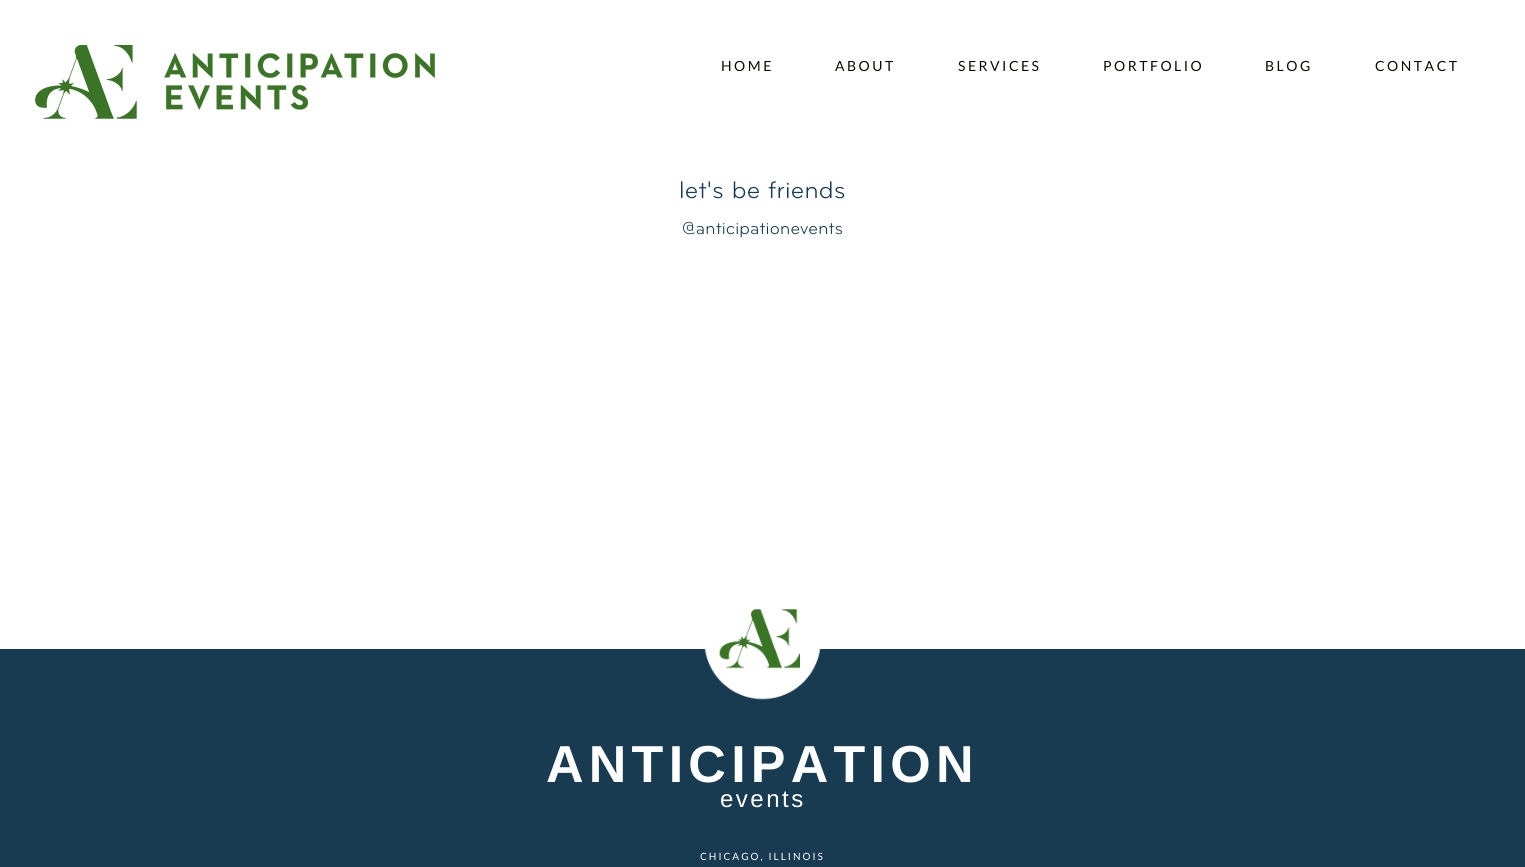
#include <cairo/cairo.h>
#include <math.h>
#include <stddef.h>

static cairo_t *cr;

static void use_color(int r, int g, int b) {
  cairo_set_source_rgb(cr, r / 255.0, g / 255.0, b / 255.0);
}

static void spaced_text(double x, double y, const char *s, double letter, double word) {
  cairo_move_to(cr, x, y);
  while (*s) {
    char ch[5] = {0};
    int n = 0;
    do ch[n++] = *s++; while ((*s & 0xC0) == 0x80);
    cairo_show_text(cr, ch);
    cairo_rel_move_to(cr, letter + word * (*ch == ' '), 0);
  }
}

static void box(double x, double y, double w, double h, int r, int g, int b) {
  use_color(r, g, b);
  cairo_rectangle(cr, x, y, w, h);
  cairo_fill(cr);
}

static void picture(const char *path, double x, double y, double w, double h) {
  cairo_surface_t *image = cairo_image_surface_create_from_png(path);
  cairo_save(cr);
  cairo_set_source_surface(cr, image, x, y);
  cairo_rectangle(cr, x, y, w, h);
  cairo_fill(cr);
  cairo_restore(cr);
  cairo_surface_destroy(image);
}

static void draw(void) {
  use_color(255, 255, 255);
  cairo_paint(cr);
  picture("img_01.png", 35, 45, 400, 74);
  box(0, 649, 1525, 218, 24, 59, 81);
  picture("img_02.png", 704, 609, 117, 91);
  cairo_select_font_face(cr, "Lato", CAIRO_FONT_SLANT_NORMAL, CAIRO_FONT_WEIGHT_NORMAL);
  cairo_set_font_size(cr, 14);
  use_color(10, 11, 5);
  spaced_text(721, 71, "HOME", 2.5, 0);
  spaced_text(835, 71, "ABOUT", 2.5, 0);
  spaced_text(958, 71, "SERVICES", 2.5, 0);
  spaced_text(1103, 71, "PORTFOLIO", 2.5, 0);
  spaced_text(1265, 71, "BLOG", 2.5, 0);
  spaced_text(1375, 71, "CONTACT", 2.5, 0);
  cairo_select_font_face(cr, "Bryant", CAIRO_FONT_SLANT_NORMAL, CAIRO_FONT_WEIGHT_NORMAL);
  cairo_set_font_size(cr, 25);
  use_color(24, 59, 81);
  spaced_text(679, 198, "let's be friends", 0.25, 0);
  cairo_set_font_size(cr, 18);
  spaced_text(682, 234, "@anticipationevents", 0.2, 0);
  cairo_select_font_face(cr, "Liberation Sans", CAIRO_FONT_SLANT_NORMAL, CAIRO_FONT_WEIGHT_BOLD);
  cairo_set_font_size(cr, 52);
  use_color(255, 255, 255);
  spaced_text(546, 782, "ANTICIPATION", 5.25, 0);
  cairo_select_font_face(cr, "Liberation Sans", CAIRO_FONT_SLANT_NORMAL, CAIRO_FONT_WEIGHT_NORMAL);
  cairo_set_font_size(cr, 24);
  spaced_text(720, 807, "events", 2.5, 0);
  cairo_select_font_face(cr, "Lato", CAIRO_FONT_SLANT_NORMAL, CAIRO_FONT_WEIGHT_NORMAL);
  cairo_set_font_size(cr, 10);
  spaced_text(700, 860, "CHICAGO, ILLINOIS", 2, 0);
}

int main(void) {
  cairo_surface_t *surface = cairo_image_surface_create(CAIRO_FORMAT_RGB24, 1525, 867);
  cr = cairo_create(surface);
  cairo_font_options_t *options = cairo_font_options_create();
  cairo_font_options_set_hint_metrics(options, CAIRO_HINT_METRICS_OFF);
  cairo_font_options_set_hint_style(options, CAIRO_HINT_STYLE_NONE);
  cairo_set_font_options(cr, options);
  cairo_set_miter_limit(cr, 4);
  draw();
  cairo_surface_write_to_png(surface, "out.png");
  cairo_font_options_destroy(options);
  cairo_destroy(cr);
  cairo_surface_destroy(surface);
  return 0;
}
